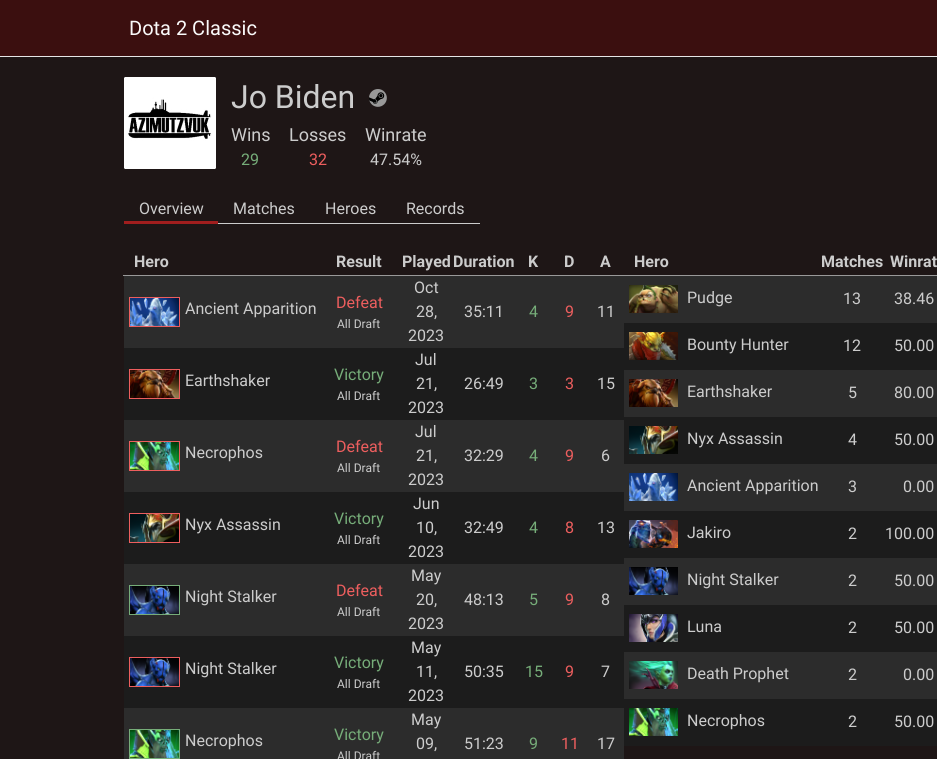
#include <cairo/cairo.h>
#include <math.h>
#include <stddef.h>

static cairo_t *cr;

static void use_color(int r, int g, int b) {
  cairo_set_source_rgb(cr, r / 255.0, g / 255.0, b / 255.0);
}

static void text(double x, double y, const char *s, const char *family, double size, int italic, int bold, int r, int g, int b) {
  cairo_select_font_face(cr, family, italic ? CAIRO_FONT_SLANT_ITALIC : CAIRO_FONT_SLANT_NORMAL,
    bold ? CAIRO_FONT_WEIGHT_BOLD : CAIRO_FONT_WEIGHT_NORMAL);
  cairo_set_font_size(cr, size);
  use_color(r, g, b);
  cairo_move_to(cr, x, y);
  cairo_show_text(cr, s);
}

static void box(double x, double y, double w, double h, int r, int g, int b) {
  use_color(r, g, b);
  cairo_rectangle(cr, x, y, w, h);
  cairo_fill(cr);
}

static void picture(const char *path, double x, double y, double w, double h) {
  cairo_surface_t *image = cairo_image_surface_create_from_png(path);
  cairo_save(cr);
  cairo_set_source_surface(cr, image, x, y);
  cairo_rectangle(cr, x, y, w, h);
  cairo_fill(cr);
  cairo_restore(cr);
  cairo_surface_destroy(image);
}

static void draw(void) {
  use_color(30, 22, 22);
  cairo_paint(cr);
  box(0, 0, 937, 56, 59, 15, 15);
  box(0, 56, 937, 1, 229, 229, 229);
  picture("img_01.png", 124, 77, 92, 92);
  picture("img_02.png", 369, 89, 18, 18);
  box(124, 221, 94, 3, 161, 30, 30);
  box(218, 223, 262, 1, 204, 204, 204);
  box(123, 275, 814, 1, 153, 153, 153);
  box(124, 276, 500, 72, 44, 44, 44);
  cairo_rectangle(cr, 129.5, 297.5, 50, 29);
  use_color(237, 94, 94);
  cairo_set_line_width(cr, 1);
  cairo_stroke(cr);
  picture("img_03.png", 130, 298, 49, 28);
  box(124, 348, 500, 72, 28, 28, 28);
  cairo_rectangle(cr, 129.5, 369.5, 50, 29);
  use_color(237, 94, 94);
  cairo_stroke(cr);
  picture("img_04.png", 130, 370, 49, 28);
  box(124, 420, 500, 72, 44, 44, 44);
  cairo_rectangle(cr, 129.5, 441.5, 50, 29);
  use_color(237, 94, 94);
  cairo_stroke(cr);
  picture("img_05.png", 130, 442, 49, 28);
  box(124, 492, 500, 72, 28, 28, 28);
  cairo_rectangle(cr, 129.5, 513.5, 50, 29);
  use_color(237, 94, 94);
  cairo_stroke(cr);
  picture("img_06.png", 130, 514, 49, 28);
  box(124, 564, 500, 72, 44, 44, 44);
  cairo_rectangle(cr, 129.5, 585.5, 50, 29);
  use_color(118, 173, 121);
  cairo_stroke(cr);
  picture("img_07.png", 130, 586, 49, 28);
  box(124, 636, 500, 72, 28, 28, 28);
  cairo_rectangle(cr, 129.5, 657.5, 50, 29);
  use_color(237, 94, 94);
  cairo_stroke(cr);
  picture("img_07.png", 130, 658, 49, 28);
  box(124, 708, 500, 51, 44, 44, 44);
  cairo_rectangle(cr, 129.5, 729.5, 50, 29);
  use_color(118, 173, 121);
  cairo_stroke(cr);
  picture("img_05.png", 130, 730, 49, 28);
  box(624, 276, 313, 47, 44, 44, 44);
  picture("img_08.png", 629, 285, 49, 28);
  box(624, 323, 313, 47, 28, 28, 28);
  picture("img_09.png", 629, 332, 49, 28);
  box(624, 370, 313, 47, 44, 44, 44);
  picture("img_04.png", 629, 379, 49, 28);
  box(624, 417, 313, 47, 28, 28, 28);
  picture("img_10.png", 629, 426, 49, 28);
  box(624, 464, 313, 47, 44, 44, 44);
  picture("img_03.png", 629, 473, 49, 28);
  box(624, 511, 313, 47, 28, 28, 28);
  picture("img_11.png", 629, 520, 49, 28);
  box(624, 558, 313, 47, 44, 44, 44);
  picture("img_12.png", 629, 567, 49, 28);
  box(624, 605, 313, 47, 28, 28, 28);
  picture("img_13.png", 629, 614, 49, 28);
  box(624, 652, 313, 47, 44, 44, 44);
  picture("img_14.png", 629, 661, 49, 28);
  box(624, 699, 313, 47, 28, 28, 28);
  picture("img_05.png", 629, 708, 49, 28);
  text(129, 35, "Dota 2 Classic", "Roboto", 20, 0, 0, 250, 250, 250);
  text(231, 108, "Jo Biden", "Roboto", 32, 0, 0, 204, 204, 204);
  text(231, 141, "Wins", "Roboto", 18, 0, 0, 204, 204, 204);
  text(241, 165, "29", "Roboto", 16, 0, 0, 118, 173, 121);
  text(289, 141, "Losses", "Roboto", 18, 0, 0, 204, 204, 204);
  text(309, 165, "32", "Roboto", 16, 0, 0, 237, 94, 94);
  text(365, 141, "Winrate", "Roboto", 18, 0, 0, 204, 204, 204);
  text(370, 165, "47.54%", "Roboto", 16, 0, 0, 204, 204, 204);
  text(139, 214, "Overview", "Roboto", 16, 0, 0, 204, 204, 204);
  text(233, 214, "Matches", "Roboto", 16, 0, 0, 204, 204, 204);
  text(325, 214, "Heroes", "Roboto", 16, 0, 0, 204, 204, 204);
  text(406, 214, "Records", "Roboto", 16, 0, 0, 204, 204, 204);
  text(134, 267, "Hero", "Roboto", 16, 0, 1, 204, 204, 204);
  text(336, 267, "Result", "Roboto", 16, 0, 1, 204, 204, 204);
  text(402, 267, "Played", "Roboto", 16, 0, 1, 204, 204, 204);
  text(453, 267, "Duration", "Roboto", 16, 0, 1, 204, 204, 204);
  text(528, 267, "K", "Roboto", 16, 0, 1, 204, 204, 204);
  text(564, 267, "D", "Roboto", 16, 0, 1, 204, 204, 204);
  text(600, 267, "A", "Roboto", 16, 0, 1, 204, 204, 204);
  text(185, 314, "Ancient Apparition", "Roboto", 16, 0, 0, 204, 204, 204);
  text(336, 308, "Defeat", "Roboto", 16, 0, 0, 237, 94, 94);
  text(337, 328, "All Draft", "Roboto", 12, 0, 0, 204, 204, 204);
  text(414, 293, "Oct", "Roboto", 16, 0, 0, 204, 204, 204);
  text(416, 317, "28,", "Roboto", 16, 0, 0, 204, 204, 204);
  text(408, 341, "2023", "Roboto", 16, 0, 0, 204, 204, 204);
  text(464, 317, "35:11", "Roboto", 16, 0, 0, 204, 204, 204);
  text(529, 317, "4", "Roboto", 16, 0, 0, 118, 173, 121);
  text(565, 317, "9", "Roboto", 16, 0, 0, 237, 94, 94);
  text(597, 317, "11", "Roboto", 16, 0, 0, 204, 204, 204);
  text(185, 386, "Earthshaker", "Roboto", 16, 0, 0, 204, 204, 204);
  text(334, 380, "Victory", "Roboto", 16, 0, 0, 118, 173, 121);
  text(337, 400, "All Draft", "Roboto", 12, 0, 0, 204, 204, 204);
  text(415, 365, "Jul", "Roboto", 16, 0, 0, 204, 204, 204);
  text(416, 389, "21,", "Roboto", 16, 0, 0, 204, 204, 204);
  text(408, 413, "2023", "Roboto", 16, 0, 0, 204, 204, 204);
  text(464, 389, "26:49", "Roboto", 16, 0, 0, 204, 204, 204);
  text(529, 389, "3", "Roboto", 16, 0, 0, 118, 173, 121);
  text(565, 389, "3", "Roboto", 16, 0, 0, 237, 94, 94);
  text(597, 389, "15", "Roboto", 16, 0, 0, 204, 204, 204);
  text(185, 458, "Necrophos", "Roboto", 16, 0, 0, 204, 204, 204);
  text(336, 452, "Defeat", "Roboto", 16, 0, 0, 237, 94, 94);
  text(337, 472, "All Draft", "Roboto", 12, 0, 0, 204, 204, 204);
  text(415, 437, "Jul", "Roboto", 16, 0, 0, 204, 204, 204);
  text(416, 461, "21,", "Roboto", 16, 0, 0, 204, 204, 204);
  text(408, 485, "2023", "Roboto", 16, 0, 0, 204, 204, 204);
  text(464, 461, "32:29", "Roboto", 16, 0, 0, 204, 204, 204);
  text(529, 461, "4", "Roboto", 16, 0, 0, 118, 173, 121);
  text(565, 461, "9", "Roboto", 16, 0, 0, 237, 94, 94);
  text(601, 461, "6", "Roboto", 16, 0, 0, 204, 204, 204);
  text(185, 530, "Nyx Assassin", "Roboto", 16, 0, 0, 204, 204, 204);
  text(334, 524, "Victory", "Roboto", 16, 0, 0, 118, 173, 121);
  text(337, 544, "All Draft", "Roboto", 12, 0, 0, 204, 204, 204);
  text(413, 509, "Jun", "Roboto", 16, 0, 0, 204, 204, 204);
  text(416, 533, "10,", "Roboto", 16, 0, 0, 204, 204, 204);
  text(408, 557, "2023", "Roboto", 16, 0, 0, 204, 204, 204);
  text(464, 533, "32:49", "Roboto", 16, 0, 0, 204, 204, 204);
  text(529, 533, "4", "Roboto", 16, 0, 0, 118, 173, 121);
  text(565, 533, "8", "Roboto", 16, 0, 0, 237, 94, 94);
  text(597, 533, "13", "Roboto", 16, 0, 0, 204, 204, 204);
  text(185, 602, "Night Stalker", "Roboto", 16, 0, 0, 204, 204, 204);
  text(336, 596, "Defeat", "Roboto", 16, 0, 0, 237, 94, 94);
  text(337, 616, "All Draft", "Roboto", 12, 0, 0, 204, 204, 204);
  text(411, 581, "May", "Roboto", 16, 0, 0, 204, 204, 204);
  text(416, 605, "20,", "Roboto", 16, 0, 0, 204, 204, 204);
  text(408, 629, "2023", "Roboto", 16, 0, 0, 204, 204, 204);
  text(464, 605, "48:13", "Roboto", 16, 0, 0, 204, 204, 204);
  text(529, 605, "5", "Roboto", 16, 0, 0, 118, 173, 121);
  text(565, 605, "9", "Roboto", 16, 0, 0, 237, 94, 94);
  text(601, 605, "8", "Roboto", 16, 0, 0, 204, 204, 204);
  text(185, 674, "Night Stalker", "Roboto", 16, 0, 0, 204, 204, 204);
  text(334, 668, "Victory", "Roboto", 16, 0, 0, 118, 173, 121);
  text(337, 688, "All Draft", "Roboto", 12, 0, 0, 204, 204, 204);
  text(411, 653, "May", "Roboto", 16, 0, 0, 204, 204, 204);
  text(416, 677, "11,", "Roboto", 16, 0, 0, 204, 204, 204);
  text(408, 701, "2023", "Roboto", 16, 0, 0, 204, 204, 204);
  text(464, 677, "50:35", "Roboto", 16, 0, 0, 204, 204, 204);
  text(525, 677, "15", "Roboto", 16, 0, 0, 118, 173, 121);
  text(565, 677, "9", "Roboto", 16, 0, 0, 237, 94, 94);
  text(601, 677, "7", "Roboto", 16, 0, 0, 204, 204, 204);
  text(185, 746, "Necrophos", "Roboto", 16, 0, 0, 204, 204, 204);
  text(334, 740, "Victory", "Roboto", 16, 0, 0, 118, 173, 121);
  text(337, 760, "All Draft", "Roboto", 12, 0, 0, 204, 204, 204);
  text(411, 725, "May", "Roboto", 16, 0, 0, 204, 204, 204);
  text(416, 749, "09,", "Roboto", 16, 0, 0, 204, 204, 204);
  text(464, 749, "51:23", "Roboto", 16, 0, 0, 204, 204, 204);
  text(529, 749, "9", "Roboto", 16, 0, 0, 118, 173, 121);
  text(561, 749, "11", "Roboto", 16, 0, 0, 237, 94, 94);
  text(597, 749, "17", "Roboto", 16, 0, 0, 204, 204, 204);
  text(634, 267, "Hero", "Roboto", 16, 0, 1, 204, 204, 204);
  text(821, 267, "Matches", "Roboto", 16, 0, 1, 204, 204, 204);
  text(890, 267, "Winrat", "Roboto", 16, 0, 1, 204, 204, 204);
  text(687, 303, "Pudge", "Roboto", 16, 0, 0, 204, 204, 204);
  text(843, 304, "13", "Roboto", 16, 0, 0, 204, 204, 204);
  text(894, 304, "38.46", "Roboto", 16, 0, 0, 204, 204, 204);
  text(687, 350, "Bounty Hunter", "Roboto", 16, 0, 0, 204, 204, 204);
  text(843, 351, "12", "Roboto", 16, 0, 0, 204, 204, 204);
  text(894, 351, "50.00", "Roboto", 16, 0, 0, 204, 204, 204);
  text(687, 397, "Earthshaker", "Roboto", 16, 0, 0, 204, 204, 204);
  text(848, 398, "5", "Roboto", 16, 0, 0, 204, 204, 204);
  text(894, 398, "80.00", "Roboto", 16, 0, 0, 204, 204, 204);
  text(687, 444, "Nyx Assassin", "Roboto", 16, 0, 0, 204, 204, 204);
  text(848, 445, "4", "Roboto", 16, 0, 0, 204, 204, 204);
  text(894, 445, "50.00", "Roboto", 16, 0, 0, 204, 204, 204);
  text(687, 491, "Ancient Apparition", "Roboto", 16, 0, 0, 204, 204, 204);
  text(848, 492, "3", "Roboto", 16, 0, 0, 204, 204, 204);
  text(903, 492, "0.00", "Roboto", 16, 0, 0, 204, 204, 204);
  text(687, 538, "Jakiro", "Roboto", 16, 0, 0, 204, 204, 204);
  text(848, 539, "2", "Roboto", 16, 0, 0, 204, 204, 204);
  text(885, 539, "100.00", "Roboto", 16, 0, 0, 204, 204, 204);
  text(687, 585, "Night Stalker", "Roboto", 16, 0, 0, 204, 204, 204);
  text(848, 586, "2", "Roboto", 16, 0, 0, 204, 204, 204);
  text(894, 586, "50.00", "Roboto", 16, 0, 0, 204, 204, 204);
  text(687, 632, "Luna", "Roboto", 16, 0, 0, 204, 204, 204);
  text(848, 633, "2", "Roboto", 16, 0, 0, 204, 204, 204);
  text(894, 633, "50.00", "Roboto", 16, 0, 0, 204, 204, 204);
  text(687, 679, "Death Prophet", "Roboto", 16, 0, 0, 204, 204, 204);
  text(848, 680, "2", "Roboto", 16, 0, 0, 204, 204, 204);
  text(903, 680, "0.00", "Roboto", 16, 0, 0, 204, 204, 204);
  text(687, 726, "Necrophos", "Roboto", 16, 0, 0, 204, 204, 204);
  text(848, 727, "2", "Roboto", 16, 0, 0, 204, 204, 204);
  text(894, 727, "50.00", "Roboto", 16, 0, 0, 204, 204, 204);
}

int main(void) {
  cairo_surface_t *surface = cairo_image_surface_create(CAIRO_FORMAT_RGB24, 937, 759);
  cr = cairo_create(surface);
  cairo_font_options_t *options = cairo_font_options_create();
  cairo_font_options_set_hint_metrics(options, CAIRO_HINT_METRICS_OFF);
  cairo_font_options_set_hint_style(options, CAIRO_HINT_STYLE_NONE);
  cairo_set_font_options(cr, options);
  cairo_set_miter_limit(cr, 4);
  draw();
  cairo_surface_write_to_png(surface, "out.png");
  cairo_font_options_destroy(options);
  cairo_destroy(cr);
  cairo_surface_destroy(surface);
  return 0;
}
